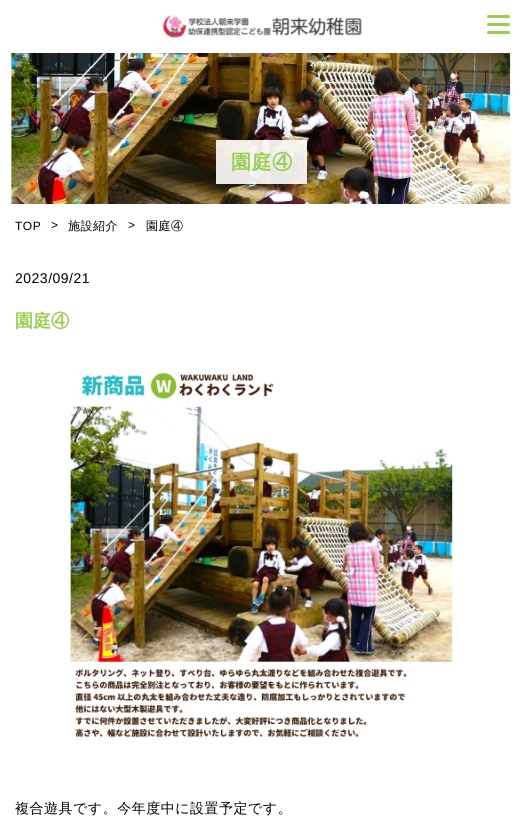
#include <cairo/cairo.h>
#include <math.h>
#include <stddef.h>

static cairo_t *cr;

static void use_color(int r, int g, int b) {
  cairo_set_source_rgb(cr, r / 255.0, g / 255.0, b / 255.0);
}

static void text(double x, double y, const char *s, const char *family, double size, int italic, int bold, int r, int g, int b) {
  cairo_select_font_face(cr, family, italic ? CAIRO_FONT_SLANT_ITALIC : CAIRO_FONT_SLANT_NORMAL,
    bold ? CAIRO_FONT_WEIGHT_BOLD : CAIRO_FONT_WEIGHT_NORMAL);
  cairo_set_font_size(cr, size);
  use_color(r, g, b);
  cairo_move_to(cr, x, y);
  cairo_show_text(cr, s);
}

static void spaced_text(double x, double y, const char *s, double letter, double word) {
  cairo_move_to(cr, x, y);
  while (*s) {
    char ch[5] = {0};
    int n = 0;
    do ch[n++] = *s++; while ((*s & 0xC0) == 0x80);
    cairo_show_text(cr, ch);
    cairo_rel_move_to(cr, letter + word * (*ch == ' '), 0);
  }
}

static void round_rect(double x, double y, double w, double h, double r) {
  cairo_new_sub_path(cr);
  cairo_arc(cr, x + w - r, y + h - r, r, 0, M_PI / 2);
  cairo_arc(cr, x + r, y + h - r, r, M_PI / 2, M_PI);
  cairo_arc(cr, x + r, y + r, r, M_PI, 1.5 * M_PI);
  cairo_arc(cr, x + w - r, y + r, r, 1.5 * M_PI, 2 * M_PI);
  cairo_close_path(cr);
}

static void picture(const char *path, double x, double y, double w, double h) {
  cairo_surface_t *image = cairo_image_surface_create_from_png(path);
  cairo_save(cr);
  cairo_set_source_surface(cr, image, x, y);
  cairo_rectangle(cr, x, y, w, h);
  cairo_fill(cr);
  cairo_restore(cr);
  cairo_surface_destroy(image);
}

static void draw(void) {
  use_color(255, 255, 255);
  cairo_paint(cr);
  picture("img_01.png", 162, 15, 200, 23);
  use_color(154, 206, 80);
  round_rect(487, 15, 23, 3, 1.5);
  cairo_fill(cr);
  round_rect(487, 23, 23, 3, 1.5);
  cairo_fill(cr);
  round_rect(487, 31, 23, 3, 1.5);
  cairo_fill(cr);
  picture("img_02.png", 9, 53, 503, 151);
  cairo_set_source_rgba(cr, 1, 1, 1, 0.9);
  cairo_rectangle(cr, 216, 140, 91, 44);
  cairo_fill(cr);
  picture("img_03.png", 69, 372, 384, 367);
  cairo_select_font_face(cr, "WenQuanYi Zen Hei", CAIRO_FONT_SLANT_NORMAL, CAIRO_FONT_WEIGHT_BOLD);
  cairo_set_font_size(cr, 20);
  use_color(154, 206, 80);
  spaced_text(231, 169, "園庭④", 0.5, 0);
  cairo_select_font_face(cr, "Liberation Sans", CAIRO_FONT_SLANT_NORMAL, CAIRO_FONT_WEIGHT_NORMAL);
  cairo_set_font_size(cr, 12);
  use_color(0, 0, 0);
  spaced_text(15, 230, "TOP", 0.5, 0);
  spaced_text(51, 229, ">", 0.5, 0);
  cairo_select_font_face(cr, "WenQuanYi Zen Hei Medium", CAIRO_FONT_SLANT_NORMAL, CAIRO_FONT_WEIGHT_NORMAL);
  spaced_text(68, 230, "施設紹介", 0.5, 0);
  cairo_select_font_face(cr, "Liberation Sans", CAIRO_FONT_SLANT_NORMAL, CAIRO_FONT_WEIGHT_NORMAL);
  spaced_text(128, 229, ">", 0.5, 0);
  cairo_select_font_face(cr, "WenQuanYi Zen Hei Medium", CAIRO_FONT_SLANT_NORMAL, CAIRO_FONT_WEIGHT_NORMAL);
  spaced_text(146, 230, "園庭④", 0.5, 0);
  cairo_select_font_face(cr, "Liberation Sans", CAIRO_FONT_SLANT_NORMAL, CAIRO_FONT_WEIGHT_NORMAL);
  cairo_set_font_size(cr, 14);
  spaced_text(15, 283, "2023/09/21", 0.5, 0);
  text(15, 327, "園庭④", "WenQuanYi Zen Hei", 18, 0, 1, 154, 206, 80);
  cairo_select_font_face(cr, "WenQuanYi Zen Hei Medium", CAIRO_FONT_SLANT_NORMAL, CAIRO_FONT_WEIGHT_NORMAL);
  cairo_set_font_size(cr, 14);
  use_color(0, 0, 0);
  spaced_text(15, 813, "複合遊具です。今年度中に設置予定です。", 0.5, 0);
}

int main(void) {
  cairo_surface_t *surface = cairo_image_surface_create(CAIRO_FORMAT_RGB24, 523, 837);
  cr = cairo_create(surface);
  cairo_font_options_t *options = cairo_font_options_create();
  cairo_font_options_set_hint_metrics(options, CAIRO_HINT_METRICS_OFF);
  cairo_font_options_set_hint_style(options, CAIRO_HINT_STYLE_NONE);
  cairo_set_font_options(cr, options);
  cairo_set_miter_limit(cr, 4);
  draw();
  cairo_surface_write_to_png(surface, "out.png");
  cairo_font_options_destroy(options);
  cairo_destroy(cr);
  cairo_surface_destroy(surface);
  return 0;
}
